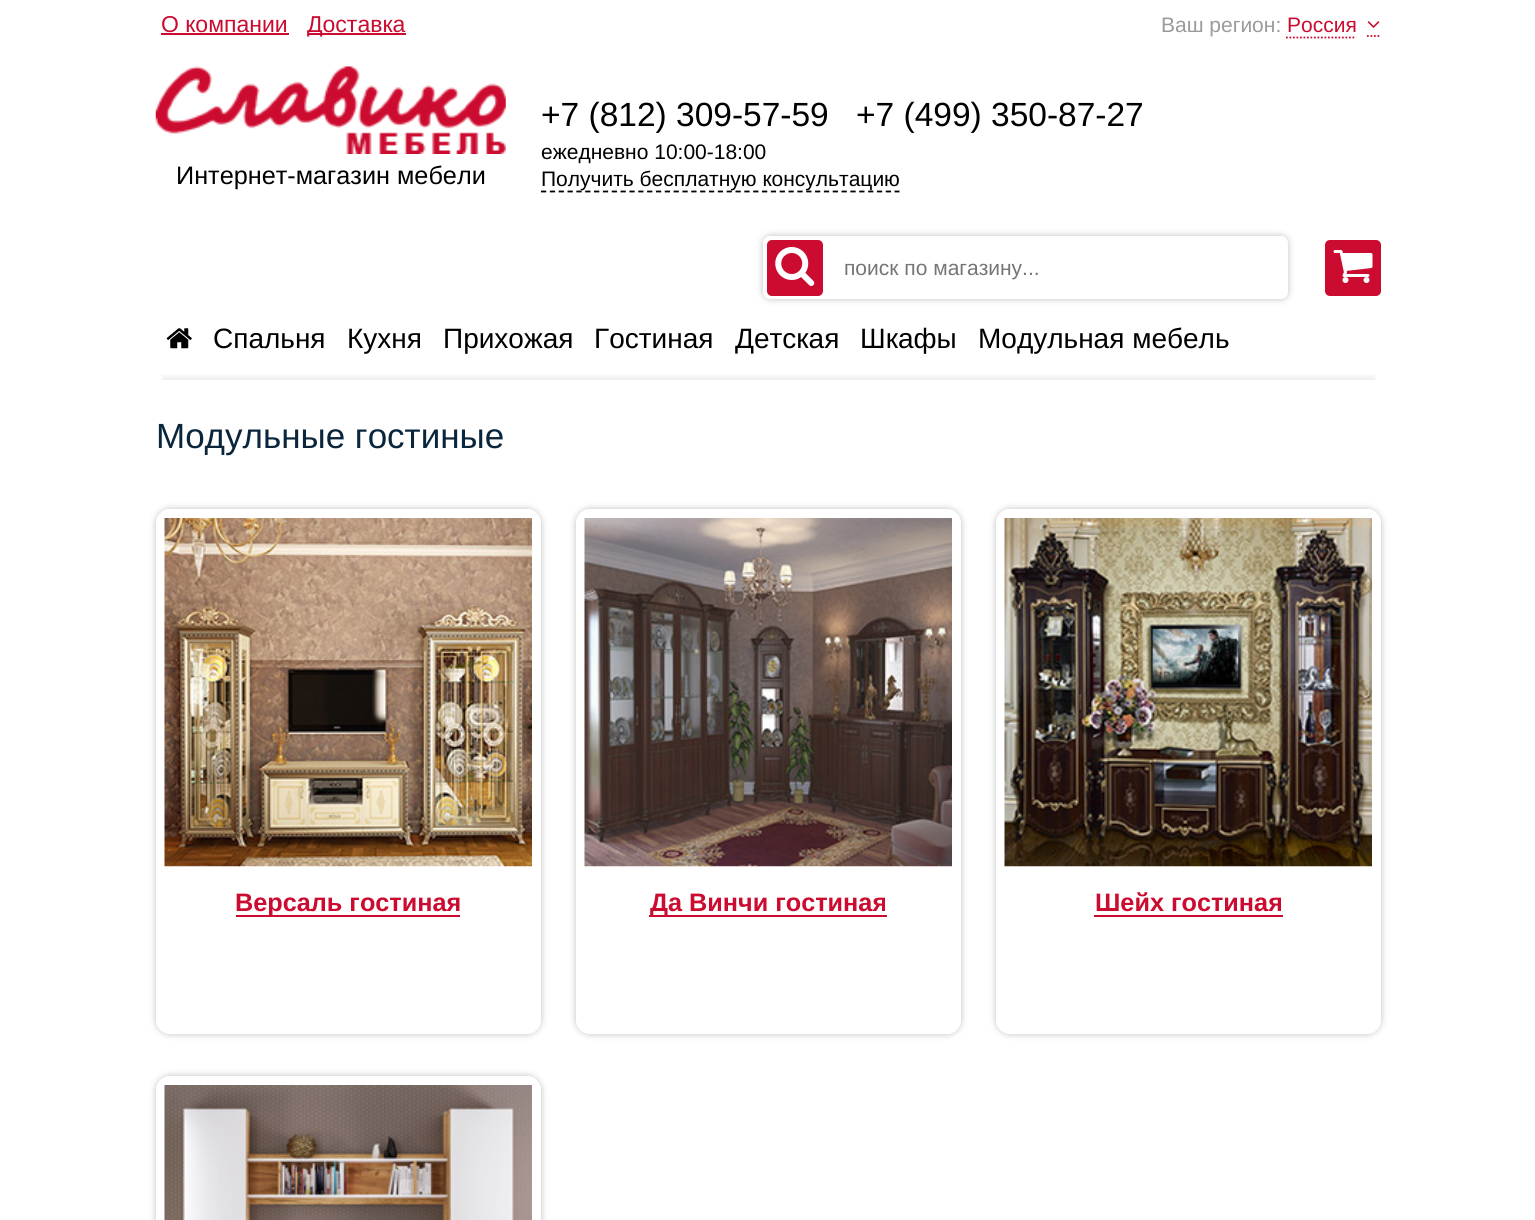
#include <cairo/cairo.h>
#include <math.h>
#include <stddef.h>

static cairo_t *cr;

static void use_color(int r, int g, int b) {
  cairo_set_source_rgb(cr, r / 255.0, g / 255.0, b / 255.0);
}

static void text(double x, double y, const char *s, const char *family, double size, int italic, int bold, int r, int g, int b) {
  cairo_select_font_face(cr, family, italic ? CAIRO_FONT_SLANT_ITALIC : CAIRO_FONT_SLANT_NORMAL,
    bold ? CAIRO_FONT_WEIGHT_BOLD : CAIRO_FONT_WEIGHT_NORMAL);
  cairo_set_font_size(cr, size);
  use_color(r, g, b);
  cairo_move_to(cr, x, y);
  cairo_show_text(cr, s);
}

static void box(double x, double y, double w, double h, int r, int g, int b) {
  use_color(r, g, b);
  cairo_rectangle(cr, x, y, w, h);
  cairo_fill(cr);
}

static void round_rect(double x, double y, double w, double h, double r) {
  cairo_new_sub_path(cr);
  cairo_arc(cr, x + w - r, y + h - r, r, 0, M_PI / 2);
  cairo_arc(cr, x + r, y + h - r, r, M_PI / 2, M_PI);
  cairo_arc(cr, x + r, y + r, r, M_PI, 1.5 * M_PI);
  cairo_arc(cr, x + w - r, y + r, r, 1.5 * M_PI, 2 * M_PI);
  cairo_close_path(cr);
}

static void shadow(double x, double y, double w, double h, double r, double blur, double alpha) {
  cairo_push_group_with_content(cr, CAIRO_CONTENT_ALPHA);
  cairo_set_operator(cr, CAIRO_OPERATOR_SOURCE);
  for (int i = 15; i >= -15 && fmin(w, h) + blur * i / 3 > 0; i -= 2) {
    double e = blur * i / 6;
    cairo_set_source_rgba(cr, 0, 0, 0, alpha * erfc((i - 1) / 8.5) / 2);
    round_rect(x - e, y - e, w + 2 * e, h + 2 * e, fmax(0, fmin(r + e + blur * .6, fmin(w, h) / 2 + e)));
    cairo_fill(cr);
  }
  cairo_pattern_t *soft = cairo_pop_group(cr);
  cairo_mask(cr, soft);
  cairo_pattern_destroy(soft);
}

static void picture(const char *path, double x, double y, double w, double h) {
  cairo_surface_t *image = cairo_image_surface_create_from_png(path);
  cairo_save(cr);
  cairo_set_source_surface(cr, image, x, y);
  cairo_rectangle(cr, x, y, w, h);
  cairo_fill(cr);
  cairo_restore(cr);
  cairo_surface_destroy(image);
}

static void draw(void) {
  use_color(255, 255, 255);
  cairo_paint(cr);
  box(161, 33, 128, 2, 203, 11, 47);
  box(308, 33, 98, 2, 203, 11, 47);
  cairo_new_path(cr);
  cairo_move_to(cr, 1286, 37.5);
  cairo_line_to(cr, 1356, 37.5);
  cairo_set_line_width(cr, 1.8);
  cairo_set_dash(cr, (double[]){1.75, 1.75}, 2, 0);
  cairo_stroke(cr);
  cairo_new_path(cr);
  cairo_move_to(cr, 1367, 36);
  cairo_line_to(cr, 1381, 36);
  cairo_stroke(cr);
  picture("img_01.png", 1367, 21, 13, 7);
  picture("img_02.png", 155, 66, 351, 88);
  cairo_new_path(cr);
  cairo_move_to(cr, 541, 191.5);
  cairo_line_to(cr, 899.5, 191.5);
  use_color(0, 0, 0);
  cairo_set_dash(cr, (double[]){5.25, 3.59}, 2, 0);
  cairo_stroke(cr);
  use_color(0, 0, 0);
  shadow(763, 236, 525, 63, 7, 3.5, 0.25);
  use_color(255, 255, 255);
  round_rect(765, 238, 521, 59, 5);
  cairo_fill_preserve(cr);
  cairo_set_line_width(cr, 4);
  cairo_set_dash(cr, NULL, 0, 0);
  cairo_stroke(cr);
  use_color(203, 11, 47);
  round_rect(767, 240, 56, 56, 5);
  cairo_fill(cr);
  picture("img_03.png", 775, 247, 40, 39);
  round_rect(1325, 240, 56, 56, 5);
  cairo_fill(cr);
  picture("img_04.png", 1333, 250, 40, 33);
  picture("img_05.png", 166, 328, 26, 21);
  cairo_save(cr);
  cairo_rectangle(cr, 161, 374, 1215, 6);
  cairo_clip(cr);
  use_color(0, 0, 0);
  shadow(163, 378, 1211, 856, 0, 4.5, 0.1);
  cairo_restore(cr);
  cairo_save(cr);
  cairo_set_fill_rule(cr, CAIRO_FILL_RULE_EVEN_ODD);
  cairo_new_path(cr);
  cairo_move_to(cr, 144, 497);
  cairo_line_to(cr, 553, 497);
  cairo_line_to(cr, 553, 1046);
  cairo_line_to(cr, 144, 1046);
  cairo_close_path(cr);
  cairo_move_to(cr, 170, 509);
  cairo_line_to(cr, 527, 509);
  cairo_curve_to(cr, 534.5, 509, 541, 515.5, 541, 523);
  cairo_line_to(cr, 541, 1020);
  cairo_curve_to(cr, 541, 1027.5, 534.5, 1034, 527, 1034);
  cairo_line_to(cr, 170, 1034);
  cairo_curve_to(cr, 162.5, 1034, 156, 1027.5, 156, 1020);
  cairo_line_to(cr, 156, 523);
  cairo_curve_to(cr, 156, 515.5, 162.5, 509, 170, 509);
  cairo_close_path(cr);
  cairo_clip(cr);
  use_color(0, 0, 0);
  shadow(156, 509, 385, 525, 14, 3.5, 0.25);
  cairo_restore(cr);
  picture("img_06.png", 164, 518, 368, 349);
  box(236, 915, 224, 2, 203, 11, 47);
  cairo_save(cr);
  cairo_set_fill_rule(cr, CAIRO_FILL_RULE_EVEN_ODD);
  cairo_new_path(cr);
  cairo_move_to(cr, 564, 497);
  cairo_line_to(cr, 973, 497);
  cairo_line_to(cr, 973, 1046);
  cairo_line_to(cr, 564, 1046);
  cairo_close_path(cr);
  cairo_move_to(cr, 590, 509);
  cairo_line_to(cr, 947, 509);
  cairo_curve_to(cr, 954.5, 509, 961, 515.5, 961, 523);
  cairo_line_to(cr, 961, 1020);
  cairo_curve_to(cr, 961, 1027.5, 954.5, 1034, 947, 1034);
  cairo_line_to(cr, 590, 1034);
  cairo_curve_to(cr, 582.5, 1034, 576, 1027.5, 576, 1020);
  cairo_line_to(cr, 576, 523);
  cairo_curve_to(cr, 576, 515.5, 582.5, 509, 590, 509);
  cairo_close_path(cr);
  cairo_clip(cr);
  use_color(0, 0, 0);
  shadow(576, 509, 385, 525, 14, 3.5, 0.25);
  cairo_restore(cr);
  picture("img_07.png", 584, 518, 368, 349);
  box(649, 915, 238, 2, 203, 11, 47);
  cairo_save(cr);
  cairo_set_fill_rule(cr, CAIRO_FILL_RULE_EVEN_ODD);
  cairo_new_path(cr);
  cairo_move_to(cr, 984, 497);
  cairo_line_to(cr, 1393, 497);
  cairo_line_to(cr, 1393, 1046);
  cairo_line_to(cr, 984, 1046);
  cairo_close_path(cr);
  cairo_move_to(cr, 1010, 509);
  cairo_line_to(cr, 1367, 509);
  cairo_curve_to(cr, 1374.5, 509, 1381, 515.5, 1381, 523);
  cairo_line_to(cr, 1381, 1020);
  cairo_curve_to(cr, 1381, 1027.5, 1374.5, 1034, 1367, 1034);
  cairo_line_to(cr, 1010, 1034);
  cairo_curve_to(cr, 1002.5, 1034, 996, 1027.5, 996, 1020);
  cairo_line_to(cr, 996, 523);
  cairo_curve_to(cr, 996, 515.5, 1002.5, 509, 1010, 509);
  cairo_close_path(cr);
  cairo_clip(cr);
  use_color(0, 0, 0);
  shadow(996, 509, 385, 525, 14, 3.5, 0.25);
  cairo_restore(cr);
  picture("img_08.png", 1004, 518, 368, 349);
  box(1094, 915, 189, 2, 203, 11, 47);
  cairo_save(cr);
  cairo_set_fill_rule(cr, CAIRO_FILL_RULE_EVEN_ODD);
  cairo_new_path(cr);
  cairo_move_to(cr, 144, 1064);
  cairo_line_to(cr, 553, 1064);
  cairo_line_to(cr, 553, 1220);
  cairo_line_to(cr, 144, 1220);
  cairo_close_path(cr);
  cairo_move_to(cr, 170, 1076);
  cairo_line_to(cr, 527, 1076);
  cairo_curve_to(cr, 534.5, 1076, 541, 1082.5, 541, 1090);
  cairo_line_to(cr, 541, 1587);
  cairo_curve_to(cr, 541, 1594.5, 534.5, 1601, 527, 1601);
  cairo_line_to(cr, 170, 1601);
  cairo_curve_to(cr, 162.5, 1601, 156, 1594.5, 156, 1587);
  cairo_line_to(cr, 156, 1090);
  cairo_curve_to(cr, 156, 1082.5, 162.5, 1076, 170, 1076);
  cairo_close_path(cr);
  cairo_clip(cr);
  use_color(0, 0, 0);
  shadow(156, 1076, 385, 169, 14, 3.5, 0.25);
  cairo_restore(cr);
  picture("img_09.png", 164, 1085, 368, 135);
  text(161, 32, "О компании", "Liberation Sans", 23, 0, 0, 203, 11, 47);
  text(307, 32, "Доставка", "Liberation Sans", 23, 0, 0, 203, 11, 47);
  text(1161, 32, "Ваш регион:", "Liberation Sans", 21, 0, 0, 155, 155, 155);
  text(1287, 32, "Россия", "Liberation Sans", 21, 0, 0, 203, 11, 47);
  text(176, 184, "Интернет-магазин мебели", "Liberation Sans", 25.25, 0, 0, 0, 0, 0);
  text(541, 126, "+7 (812) 309-57-59", "Liberation Sans", 33.5, 0, 0, 0, 0, 0);
  text(856, 126, "+7 (499) 350-87-27", "Liberation Sans", 33.5, 0, 0, 0, 0, 0);
  text(541, 159, "ежедневно 10:00-18:00", "Liberation Sans", 21, 0, 0, 0, 0, 0);
  text(541, 186, "Получить бесплатную консультацию", "Liberation Sans", 21, 0, 0, 0, 0, 0);
  text(844, 275, "поиск по магазину...", "Liberation Sans", 21, 0, 0, 117, 117, 117);
  text(213, 348, "Спальня", "Liberation Sans", 28, 0, 0, 0, 0, 0);
  text(347, 348, "Кухня", "Liberation Sans", 28, 0, 0, 0, 0, 0);
  text(443, 348, "Прихожая", "Liberation Sans", 28, 0, 0, 0, 0, 0);
  text(594, 348, "Гостиная", "Liberation Sans", 28, 0, 0, 0, 0, 0);
  text(735, 348, "Детская", "Liberation Sans", 28, 0, 0, 0, 0, 0);
  text(860, 348, "Шкафы", "Liberation Sans", 28, 0, 0, 0, 0, 0);
  text(978, 348, "Модульная мебель", "Liberation Sans", 28, 0, 0, 0, 0, 0);
  text(156, 448, "Модульные гостиные", "Liberation Sans", 35, 0, 0, 10, 38, 60);
  text(235, 911, "Версаль гостиная", "Liberation Sans", 25.25, 0, 1, 203, 11, 47);
  text(650, 911, "Да Винчи гостиная", "Liberation Sans", 25.25, 0, 1, 203, 11, 47);
  text(1095, 911, "Шейх гостиная", "Liberation Sans", 25.25, 0, 1, 203, 11, 47);
}

int main(void) {
  cairo_surface_t *surface = cairo_image_surface_create(CAIRO_FORMAT_RGB24, 1535, 1220);
  cr = cairo_create(surface);
  cairo_font_options_t *options = cairo_font_options_create();
  cairo_font_options_set_hint_metrics(options, CAIRO_HINT_METRICS_OFF);
  cairo_font_options_set_hint_style(options, CAIRO_HINT_STYLE_NONE);
  cairo_set_font_options(cr, options);
  cairo_set_miter_limit(cr, 4);
  draw();
  cairo_surface_write_to_png(surface, "out.png");
  cairo_font_options_destroy(options);
  cairo_destroy(cr);
  cairo_surface_destroy(surface);
  return 0;
}
